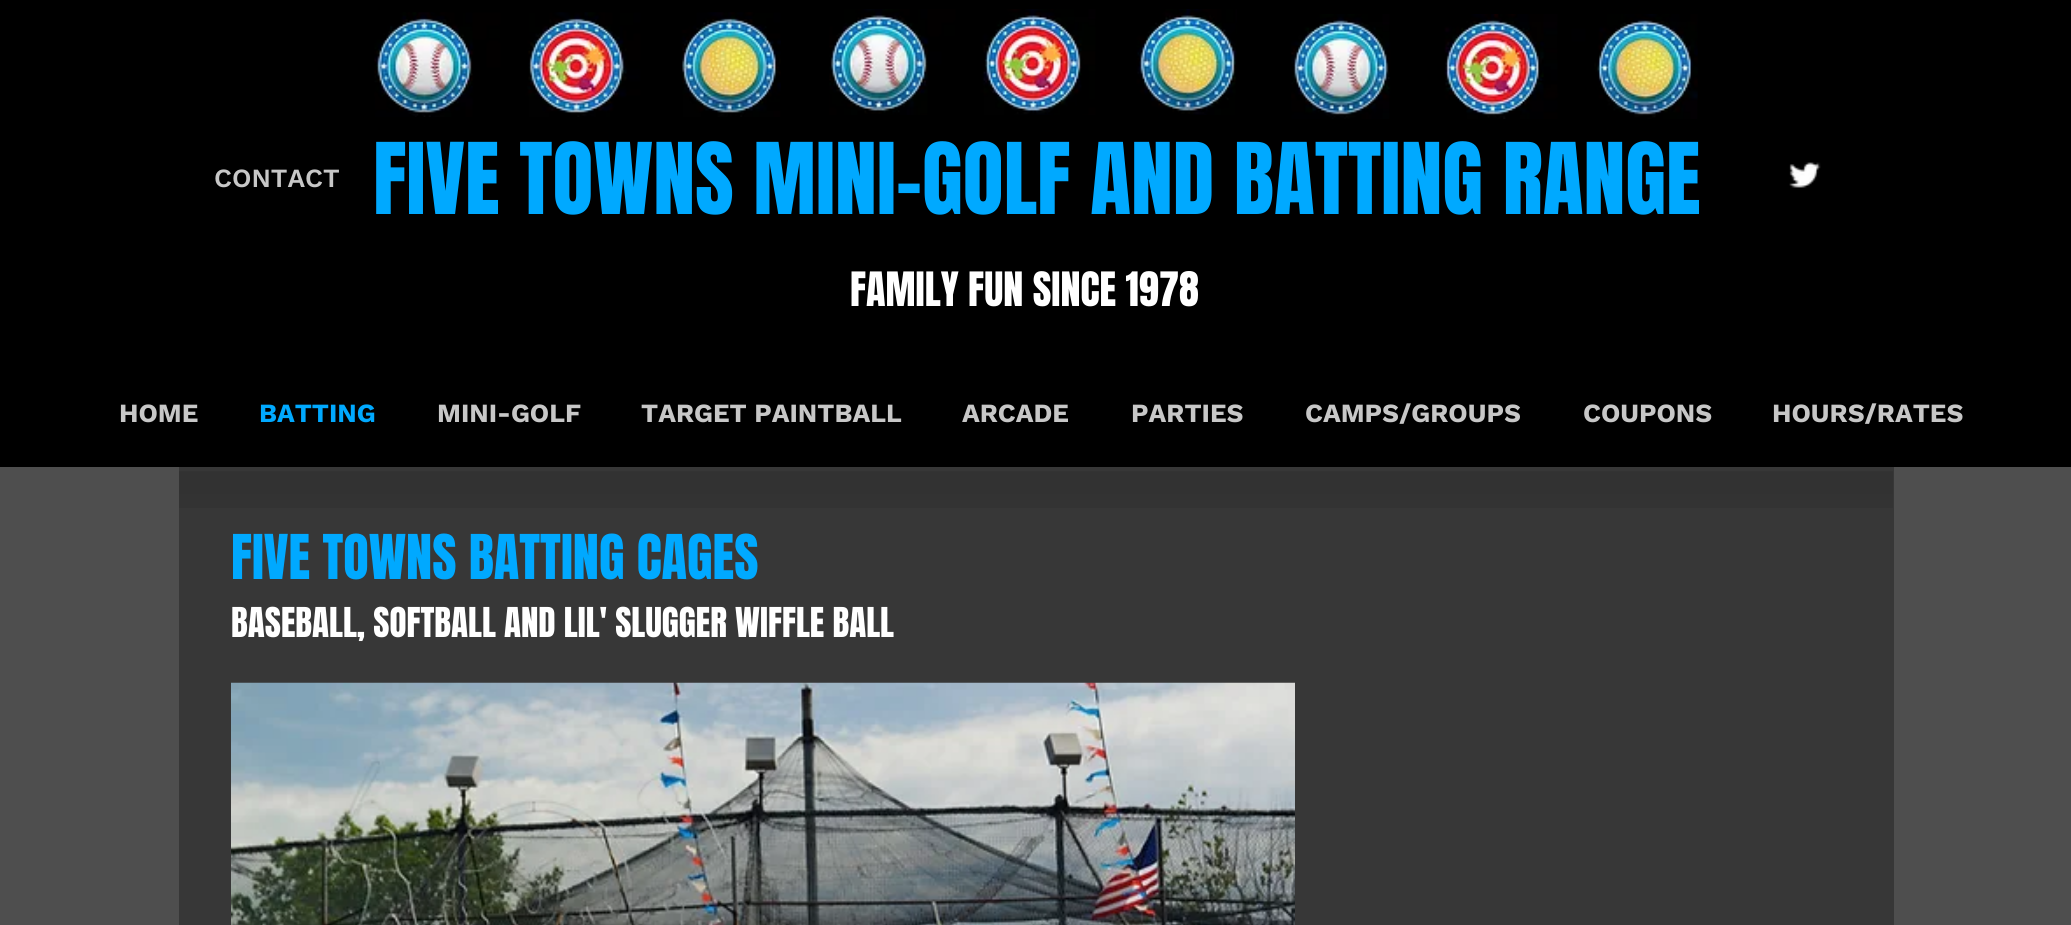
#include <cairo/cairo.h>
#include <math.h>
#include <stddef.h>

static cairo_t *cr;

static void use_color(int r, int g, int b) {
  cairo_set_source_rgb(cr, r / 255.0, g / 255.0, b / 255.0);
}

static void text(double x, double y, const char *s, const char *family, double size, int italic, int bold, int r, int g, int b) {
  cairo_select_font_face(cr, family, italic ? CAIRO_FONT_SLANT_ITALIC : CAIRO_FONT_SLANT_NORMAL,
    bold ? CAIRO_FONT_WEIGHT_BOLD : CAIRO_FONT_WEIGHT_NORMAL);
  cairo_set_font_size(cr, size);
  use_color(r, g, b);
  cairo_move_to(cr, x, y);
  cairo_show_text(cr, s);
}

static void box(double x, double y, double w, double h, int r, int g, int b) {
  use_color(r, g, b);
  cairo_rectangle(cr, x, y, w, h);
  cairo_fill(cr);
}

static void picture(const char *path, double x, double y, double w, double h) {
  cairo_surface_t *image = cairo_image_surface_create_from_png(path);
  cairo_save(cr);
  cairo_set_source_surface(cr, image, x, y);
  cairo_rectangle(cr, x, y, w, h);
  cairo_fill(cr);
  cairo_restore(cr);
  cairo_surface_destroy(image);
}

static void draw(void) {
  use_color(78, 78, 78);
  cairo_paint(cr);
  box(0, 0, 2071, 467, 0, 0, 0);
  picture("img_01.png", 374, 12, 407, 105);
  picture("img_02.png", 829, 9, 408, 106);
  picture("img_03.png", 1291, 14, 407, 105);
  picture("img_04.png", 1789, 162, 32, 26);
  box(179, 467, 1715, 458, 55, 55, 55);
  picture("img_05.png", 179, 471, 1714, 37);
  picture("img_06.png", 231, 682, 1064, 243);
  text(214, 187, "CONTACT", "Work Sans SemiBold", 26.25, 0, 0, 199, 199, 199);
  text(373, 214, "FIVE TOWNS MINI-GOLF AND BATTING RANGE", "Anton", 84, 0, 0, 0, 169, 255);
  text(850, 306, "FAMILY FUN SINCE 1978", "Anton", 40.25, 0, 0, 255, 255, 255);
  text(119, 422, "HOME", "Work Sans", 26.25, 0, 1, 199, 199, 199);
  text(259, 422, "BATTING", "Work Sans", 26.25, 0, 1, 0, 169, 255);
  text(437, 422, "MINI-GOLF", "Work Sans", 26.25, 0, 1, 199, 199, 199);
  text(641, 422, "TARGET PAINTBALL", "Work Sans", 26.25, 0, 1, 199, 199, 199);
  text(962, 422, "ARCADE", "Work Sans", 26.25, 0, 1, 199, 199, 199);
  text(1131, 422, "PARTIES", "Work Sans", 26.25, 0, 1, 199, 199, 199);
  text(1305, 422, "CAMPS/GROUPS", "Work Sans", 26.25, 0, 1, 199, 199, 199);
  text(1583, 422, "COUPONS", "Work Sans", 26.25, 0, 1, 199, 199, 199);
  text(1772, 422, "HOURS/RATES", "Work Sans", 26.25, 0, 1, 199, 199, 199);
  text(231, 579, "FIVE TOWNS BATTING CAGES", "Anton", 52.5, 0, 0, 0, 169, 255);
  text(231, 637, "BASEBALL, SOFTBALL AND LIL' SLUGGER WIFFLE BALL", "Anton", 35, 0, 0, 255, 255, 255);
}

int main(void) {
  cairo_surface_t *surface = cairo_image_surface_create(CAIRO_FORMAT_RGB24, 2071, 925);
  cr = cairo_create(surface);
  cairo_font_options_t *options = cairo_font_options_create();
  cairo_font_options_set_hint_metrics(options, CAIRO_HINT_METRICS_OFF);
  cairo_font_options_set_hint_style(options, CAIRO_HINT_STYLE_NONE);
  cairo_set_font_options(cr, options);
  cairo_set_miter_limit(cr, 4);
  draw();
  cairo_surface_write_to_png(surface, "out.png");
  cairo_font_options_destroy(options);
  cairo_destroy(cr);
  cairo_surface_destroy(surface);
  return 0;
}
